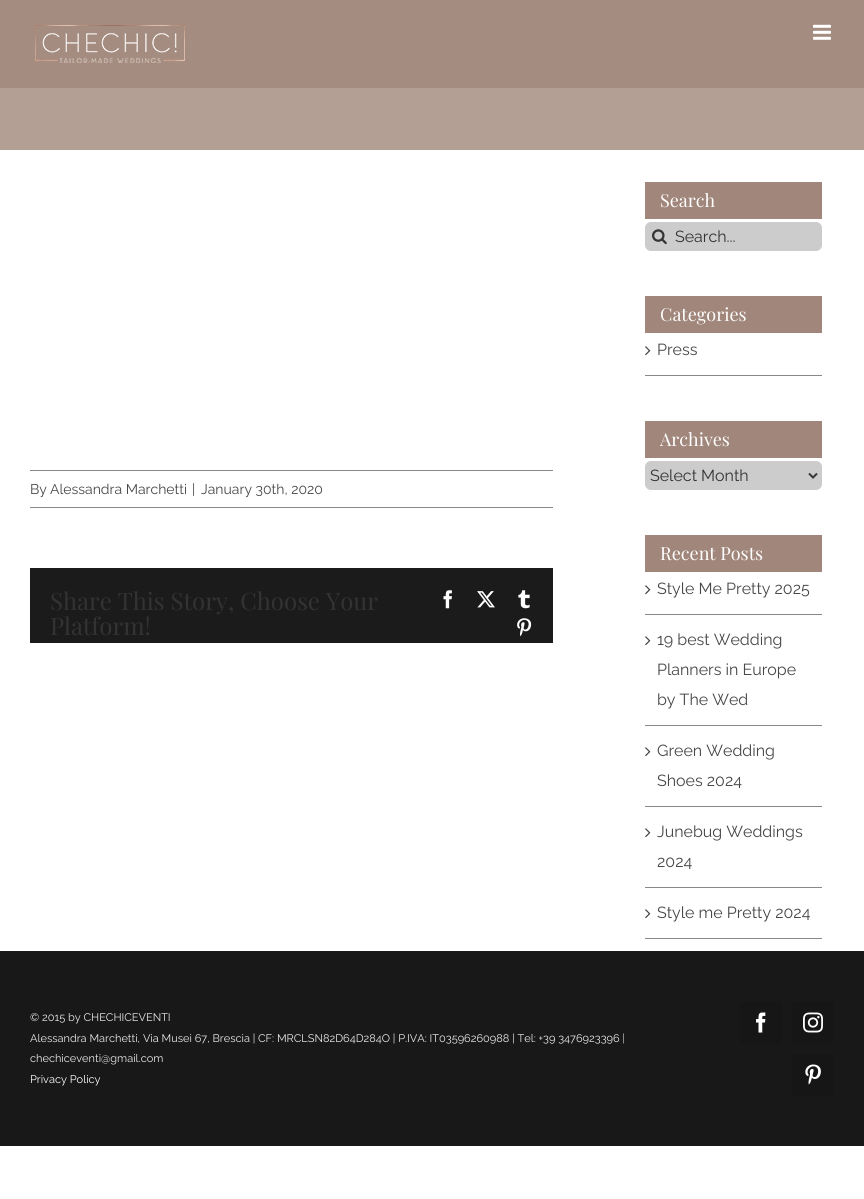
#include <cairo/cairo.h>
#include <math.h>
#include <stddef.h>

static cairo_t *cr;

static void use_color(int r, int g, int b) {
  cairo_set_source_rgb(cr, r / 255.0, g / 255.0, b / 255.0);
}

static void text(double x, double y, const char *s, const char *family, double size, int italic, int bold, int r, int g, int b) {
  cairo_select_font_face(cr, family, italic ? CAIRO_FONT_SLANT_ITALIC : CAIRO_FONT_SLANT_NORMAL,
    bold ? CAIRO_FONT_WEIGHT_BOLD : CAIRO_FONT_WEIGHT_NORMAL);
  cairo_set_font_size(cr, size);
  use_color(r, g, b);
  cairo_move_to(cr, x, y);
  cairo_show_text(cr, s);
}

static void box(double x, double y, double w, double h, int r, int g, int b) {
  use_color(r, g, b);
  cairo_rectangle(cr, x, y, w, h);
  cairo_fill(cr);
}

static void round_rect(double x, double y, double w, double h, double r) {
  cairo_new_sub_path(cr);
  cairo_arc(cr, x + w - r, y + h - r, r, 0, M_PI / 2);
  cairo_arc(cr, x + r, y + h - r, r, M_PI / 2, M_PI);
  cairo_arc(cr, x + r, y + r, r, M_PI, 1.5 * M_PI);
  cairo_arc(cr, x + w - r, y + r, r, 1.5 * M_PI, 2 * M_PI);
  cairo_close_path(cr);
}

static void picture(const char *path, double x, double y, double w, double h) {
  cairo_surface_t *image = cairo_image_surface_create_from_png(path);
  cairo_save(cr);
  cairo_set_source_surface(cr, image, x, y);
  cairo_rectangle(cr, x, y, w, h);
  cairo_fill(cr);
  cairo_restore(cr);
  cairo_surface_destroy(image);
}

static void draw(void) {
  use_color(255, 255, 255);
  cairo_paint(cr);
  box(0, 0, 864, 150, 180, 159, 149);
  cairo_set_source_rgba(cr, 0.631, 0.529, 0.482, 0.8);
  cairo_rectangle(cr, 0, 0, 864, 88);
  cairo_fill(cr);
  picture("img_01.png", 35, 25, 150, 38);
  picture("img_02.png", 813, 24, 18, 16);
  box(30, 470, 523, 1, 137, 137, 137);
  box(30, 507, 523, 1, 137, 137, 137);
  box(30, 568, 523, 75, 27, 27, 28);
  picture("img_03.png", 443, 590, 9, 19);
  picture("img_04.png", 477, 591, 18, 17);
  picture("img_05.png", 518, 590, 12, 19);
  picture("img_06.png", 517, 618, 15, 19);
  box(645, 182, 177, 37, 161, 135, 123);
  use_color(204, 204, 204);
  round_rect(645.5, 222.5, 176, 28, 5.5);
  cairo_fill_preserve(cr);
  cairo_set_line_width(cr, 1);
  cairo_stroke(cr);
  picture("img_07.png", 652, 229, 15, 16);
  box(645, 296, 177, 37, 161, 135, 123);
  box(645, 375, 177, 1, 137, 137, 137);
  picture("img_08.png", 645, 346, 6, 10);
  box(645, 421, 177, 37, 161, 135, 123);
  use_color(204, 204, 204);
  round_rect(645.5, 461.5, 176, 28, 5.5);
  cairo_fill_preserve(cr);
  cairo_stroke(cr);
  cairo_new_path(cr);
  cairo_move_to(cr, 809, 473.5);
  cairo_line_to(cr, 813, 477.5);
  cairo_line_to(cr, 817, 473.5);
  use_color(53, 53, 53);
  cairo_set_line_width(cr, 2);
  cairo_stroke(cr);
  box(645, 535, 177, 37, 161, 135, 123);
  box(645, 614, 177, 1, 137, 137, 137);
  picture("img_08.png", 645, 585, 6, 10);
  box(645, 725, 177, 1, 137, 137, 137);
  picture("img_08.png", 645, 636, 6, 10);
  box(645, 806, 177, 1, 137, 137, 137);
  picture("img_08.png", 645, 747, 6, 10);
  box(645, 887, 177, 1, 137, 137, 137);
  picture("img_08.png", 645, 828, 6, 10);
  box(645, 938, 177, 1, 137, 137, 137);
  picture("img_08.png", 645, 909, 6, 10);
  box(0, 951, 864, 195, 24, 24, 25);
  use_color(22, 22, 22);
  round_rect(740, 1002, 42, 42, 4);
  cairo_fill(cr);
  picture("img_09.png", 756, 1012, 10, 21);
  round_rect(792, 1002, 42, 42, 4);
  cairo_fill(cr);
  picture("img_10.png", 803, 1012, 20, 21);
  round_rect(792, 1054, 42, 42, 4);
  cairo_fill(cr);
  picture("img_11.png", 805, 1064, 16, 21);
  text(30, 494, "By", "Raleway", 14, 0, 0, 71, 71, 71);
  text(50, 494, "Alessandra Marchetti", "Raleway", 14, 0, 0, 71, 71, 71);
  text(192, 494, "|", "Raleway", 14, 0, 0, 71, 71, 71);
  text(201, 494, "January 30th, 2020", "Raleway", 14, 0, 0, 71, 71, 71);
  text(50, 610, "Share This Story, Choose Your", "Playfair Display", 24, 0, 0, 51, 51, 51);
  text(50, 635, "Platform!", "Playfair Display", 24, 0, 0, 51, 51, 51);
  text(660, 207, "Search", "Playfair Display", 18, 0, 0, 255, 255, 255);
  text(675, 242, "Search...", "Raleway", 16, 0, 0, 51, 51, 51);
  text(660, 321, "Categories", "Playfair Display", 18, 0, 0, 255, 255, 255);
  text(657, 355, "Press", "Raleway", 16, 0, 0, 71, 71, 71);
  text(660, 446, "Archives", "Playfair Display", 18, 0, 0, 255, 255, 255);
  text(650, 481, "Select Month", "Raleway", 16, 0, 0, 51, 51, 51);
  text(660, 560, "Recent Posts", "Playfair Display", 18, 0, 0, 255, 255, 255);
  text(657, 594, "Style Me Pretty 2025", "Raleway", 16, 0, 0, 71, 71, 71);
  text(657, 645, "19 best Wedding", "Raleway", 16, 0, 0, 71, 71, 71);
  text(657, 675, "Planners in Europe", "Raleway", 16, 0, 0, 71, 71, 71);
  text(657, 705, "by The Wed", "Raleway", 16, 0, 0, 71, 71, 71);
  text(657, 756, "Green Wedding", "Raleway", 16, 0, 0, 71, 71, 71);
  text(657, 786, "Shoes 2024", "Raleway", 16, 0, 0, 71, 71, 71);
  text(657, 837, "Junebug Weddings", "Raleway", 16, 0, 0, 71, 71, 71);
  text(657, 867, "2024", "Raleway", 16, 0, 0, 71, 71, 71);
  text(657, 918, "Style me Pretty 2024", "Raleway", 16, 0, 0, 71, 71, 71);
  text(30, 1021, "© 2015 by CHECHICEVENTI", "Raleway", 11, 0, 0, 234, 234, 234);
  text(30, 1042, "Alessandra Marchetti, Via Musei 67, Brescia | CF: MRCLSN82D64D284O | P.IVA: IT03596260988 | Tel: +39 3476923396 |", "Raleway", 11, 0, 0, 234, 234, 234);
  text(30, 1062, "chechiceventi@gmail.com", "Raleway", 11, 0, 0, 234, 234, 234);
  text(30, 1083, "Privacy Policy", "Raleway", 11, 0, 0, 255, 255, 255);
}

int main(void) {
  cairo_surface_t *surface = cairo_image_surface_create(CAIRO_FORMAT_RGB24, 864, 1199);
  cr = cairo_create(surface);
  cairo_font_options_t *options = cairo_font_options_create();
  cairo_font_options_set_hint_metrics(options, CAIRO_HINT_METRICS_OFF);
  cairo_font_options_set_hint_style(options, CAIRO_HINT_STYLE_NONE);
  cairo_set_font_options(cr, options);
  cairo_set_miter_limit(cr, 4);
  draw();
  cairo_surface_write_to_png(surface, "out.png");
  cairo_font_options_destroy(options);
  cairo_destroy(cr);
  cairo_surface_destroy(surface);
  return 0;
}
